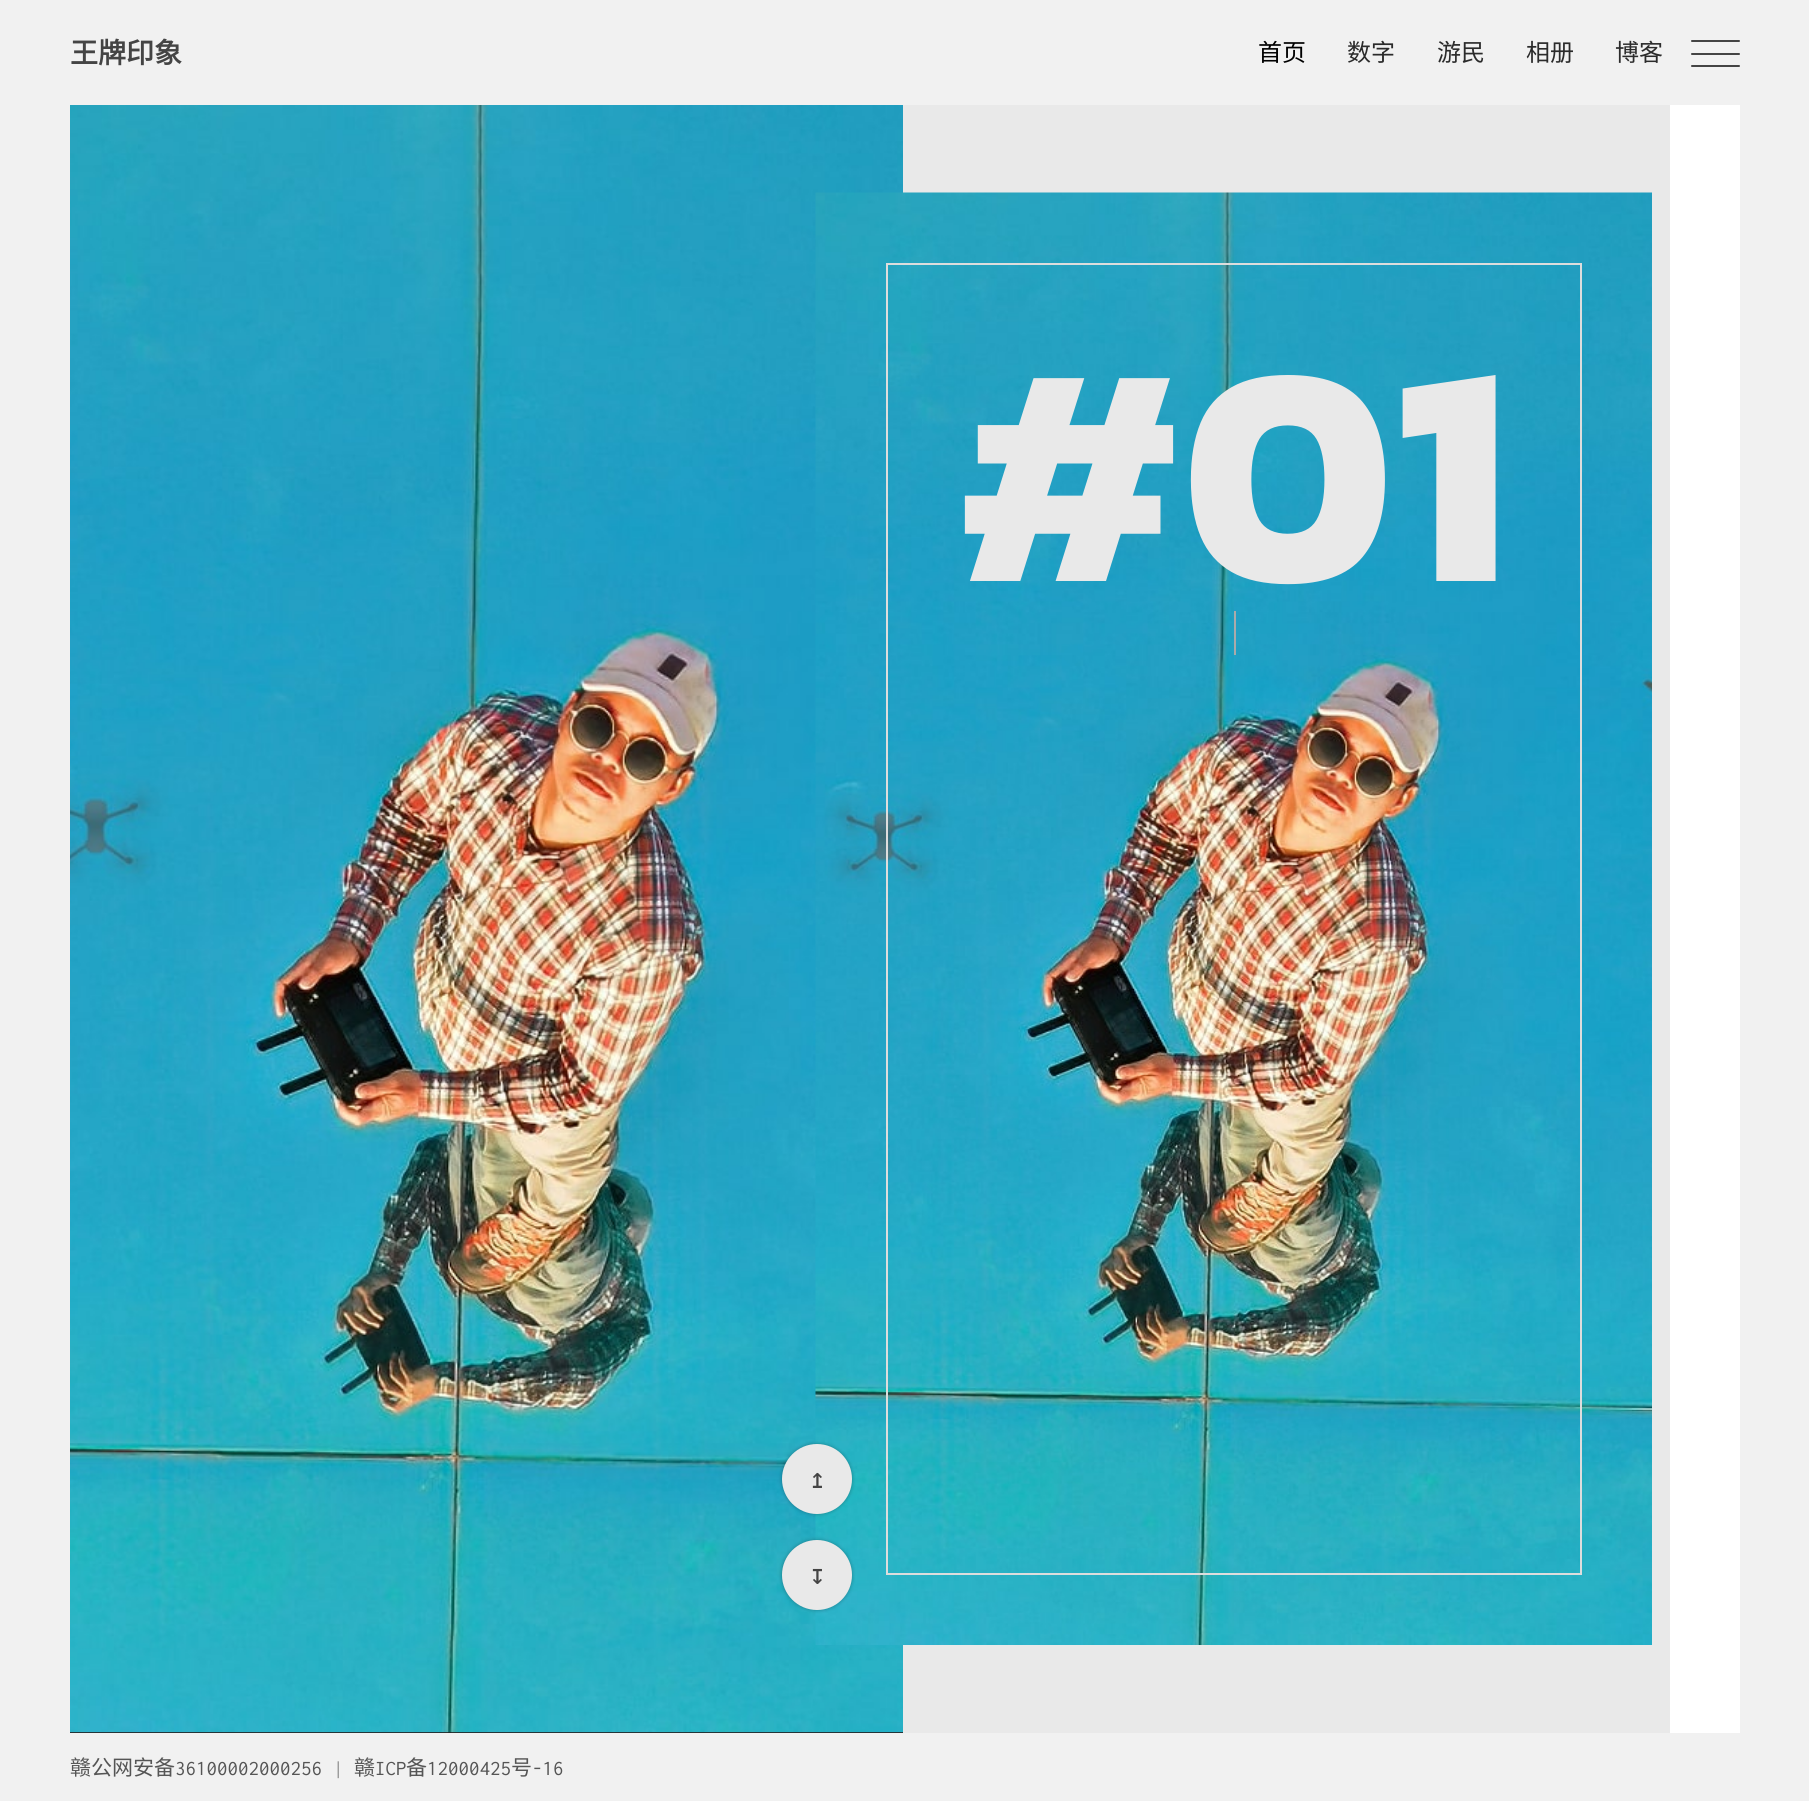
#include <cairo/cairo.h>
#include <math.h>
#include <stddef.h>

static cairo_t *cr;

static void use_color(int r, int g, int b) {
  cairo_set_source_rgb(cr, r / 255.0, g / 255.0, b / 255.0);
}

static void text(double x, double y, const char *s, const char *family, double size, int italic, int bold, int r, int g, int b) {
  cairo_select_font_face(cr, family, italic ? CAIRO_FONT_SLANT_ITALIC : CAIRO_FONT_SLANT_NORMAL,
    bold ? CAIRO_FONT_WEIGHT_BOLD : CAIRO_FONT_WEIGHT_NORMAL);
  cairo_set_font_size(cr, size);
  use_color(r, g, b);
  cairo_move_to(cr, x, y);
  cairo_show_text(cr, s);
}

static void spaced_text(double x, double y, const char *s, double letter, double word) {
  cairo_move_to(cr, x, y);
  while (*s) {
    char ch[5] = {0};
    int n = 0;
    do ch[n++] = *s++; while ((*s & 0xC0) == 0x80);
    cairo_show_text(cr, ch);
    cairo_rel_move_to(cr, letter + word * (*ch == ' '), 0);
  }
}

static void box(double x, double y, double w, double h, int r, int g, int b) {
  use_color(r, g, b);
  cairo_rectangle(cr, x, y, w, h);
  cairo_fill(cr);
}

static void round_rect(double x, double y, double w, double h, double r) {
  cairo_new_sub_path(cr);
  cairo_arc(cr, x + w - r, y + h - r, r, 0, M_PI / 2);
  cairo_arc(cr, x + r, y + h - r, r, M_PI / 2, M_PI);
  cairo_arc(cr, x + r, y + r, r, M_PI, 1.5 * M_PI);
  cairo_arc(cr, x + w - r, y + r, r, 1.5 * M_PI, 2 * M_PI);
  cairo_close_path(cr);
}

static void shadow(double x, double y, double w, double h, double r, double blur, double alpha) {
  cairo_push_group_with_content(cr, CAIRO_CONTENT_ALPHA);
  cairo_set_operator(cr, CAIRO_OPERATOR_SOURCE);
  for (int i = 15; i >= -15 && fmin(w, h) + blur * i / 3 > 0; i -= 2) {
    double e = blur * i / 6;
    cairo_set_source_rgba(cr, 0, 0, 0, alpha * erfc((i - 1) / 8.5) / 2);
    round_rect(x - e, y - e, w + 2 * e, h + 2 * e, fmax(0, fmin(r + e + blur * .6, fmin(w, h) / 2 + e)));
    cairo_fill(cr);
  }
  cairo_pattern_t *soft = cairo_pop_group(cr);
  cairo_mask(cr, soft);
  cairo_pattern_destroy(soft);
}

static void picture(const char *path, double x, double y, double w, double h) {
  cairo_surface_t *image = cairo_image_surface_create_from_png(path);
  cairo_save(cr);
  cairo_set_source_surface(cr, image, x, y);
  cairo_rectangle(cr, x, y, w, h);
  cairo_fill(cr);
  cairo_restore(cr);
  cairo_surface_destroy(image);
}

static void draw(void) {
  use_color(35, 35, 35);
  cairo_paint(cr);
  box(0, 0, 1809, 105, 241, 241, 241);
  use_color(68, 68, 68);
  round_rect(1691, 53, 49, 2, 1);
  cairo_fill(cr);
  round_rect(1691, 40, 49, 2, 1);
  cairo_fill(cr);
  round_rect(1691, 65, 49, 2, 1);
  cairo_fill(cr);
  box(0, 105, 70, 1696, 241, 241, 241);
  picture("img_01.png", 70, 105, 833, 1628);
  box(903, 105, 767, 1628, 233, 233, 233);
  picture("img_02.png", 815, 192, 837, 1453);
  cairo_rectangle(cr, 887, 264, 694, 1310);
  use_color(221, 221, 221);
  cairo_stroke(cr);
  box(1234, 611, 2, 44, 170, 170, 170);
  use_color(0, 0, 0);
  shadow(782, 1444, 70, 70, 35, 2, 0.3);
  use_color(233, 233, 233);
  cairo_arc(cr, 817, 1479, 35, 0, 2 * M_PI);
  cairo_fill(cr);
  use_color(0, 0, 0);
  shadow(782, 1540, 70, 70, 35, 2, 0.3);
  use_color(233, 233, 233);
  cairo_arc(cr, 817, 1575, 35, 0, 2 * M_PI);
  cairo_fill(cr);
  box(1670, 105, 70, 1628, 255, 255, 255);
  box(1740, 105, 69, 1696, 241, 241, 241);
  box(70, 1733, 1670, 68, 241, 241, 241);
  text(70, 63, "王牌印象", "Noto Sans CJK SC", 28, 0, 1, 68, 68, 68);
  text(1258, 61, "首页", "Noto Sans CJK SC", 24, 0, 0, 0, 0, 0);
  text(1347, 61, "数字", "Noto Sans CJK SC", 24, 0, 0, 43, 43, 43);
  text(1437, 61, "游民", "Noto Sans CJK SC", 24, 0, 0, 43, 43, 43);
  text(1526, 61, "相册", "Noto Sans CJK SC", 24, 0, 0, 43, 43, 43);
  text(1615, 61, "博客", "Noto Sans CJK SC", 24, 0, 0, 43, 43, 43);
  cairo_select_font_face(cr, "Kanit", CAIRO_FONT_SLANT_NORMAL, CAIRO_FONT_WEIGHT_BOLD);
  cairo_set_font_size(cr, 315);
  use_color(233, 233, 233);
  spaced_text(957, 581, "#01", 2, 0);
  text(809, 1488, "↥", "DejaVu Sans Mono", 28, 0, 0, 68, 68, 68);
  text(809, 1584, "↧", "DejaVu Sans Mono", 28, 0, 0, 68, 68, 68);
  text(70, 1775, "赣公网安备", "Noto Sans CJK SC", 21, 0, 0, 85, 85, 85);
  text(175, 1775, "36100002000256", "Inconsolata", 21, 0, 0, 85, 85, 85);
  text(333, 1775, "|", "Inconsolata", 21, 0, 0, 153, 153, 153);
  text(354, 1775, "赣", "Noto Sans CJK SC", 21, 0, 0, 85, 85, 85);
  text(375, 1775, "ICP", "Inconsolata", 21, 0, 0, 85, 85, 85);
  text(406, 1775, "备", "Noto Sans CJK SC", 21, 0, 0, 85, 85, 85);
  text(427, 1775, "12000425", "Inconsolata", 21, 0, 0, 85, 85, 85);
  text(511, 1775, "号", "Noto Sans CJK SC", 21, 0, 0, 85, 85, 85);
  text(532, 1775, "-16", "Inconsolata", 21, 0, 0, 85, 85, 85);
}

int main(void) {
  cairo_surface_t *surface = cairo_image_surface_create(CAIRO_FORMAT_RGB24, 1809, 1801);
  cr = cairo_create(surface);
  cairo_font_options_t *options = cairo_font_options_create();
  cairo_font_options_set_hint_metrics(options, CAIRO_HINT_METRICS_OFF);
  cairo_font_options_set_hint_style(options, CAIRO_HINT_STYLE_NONE);
  cairo_set_font_options(cr, options);
  cairo_set_miter_limit(cr, 4);
  draw();
  cairo_surface_write_to_png(surface, "out.png");
  cairo_font_options_destroy(options);
  cairo_destroy(cr);
  cairo_surface_destroy(surface);
  return 0;
}
